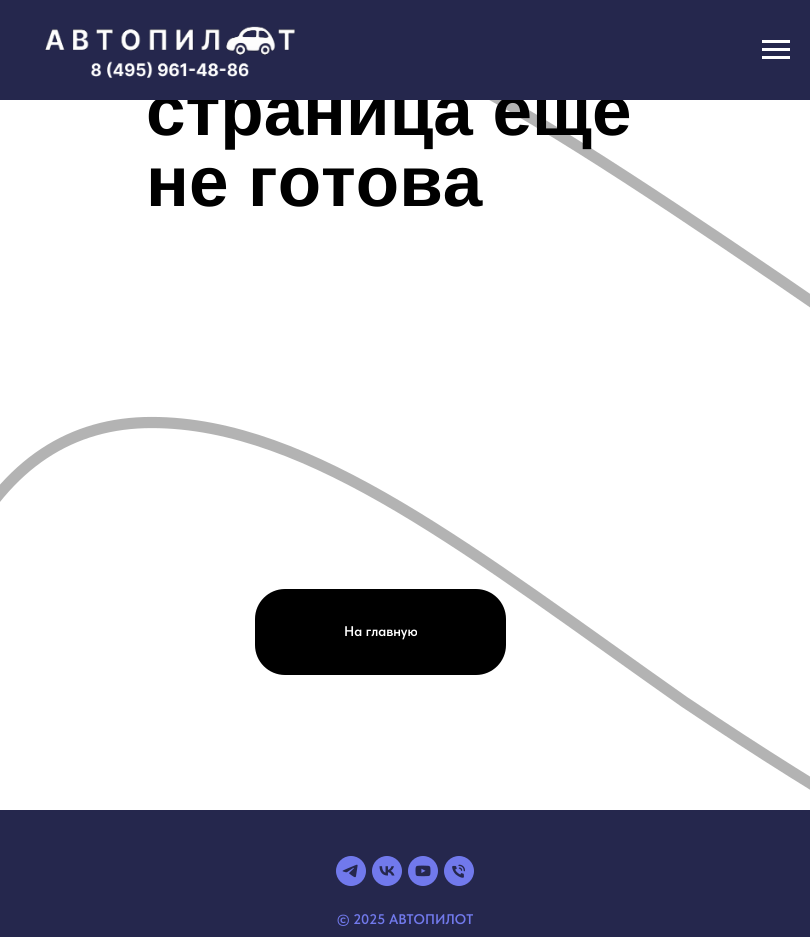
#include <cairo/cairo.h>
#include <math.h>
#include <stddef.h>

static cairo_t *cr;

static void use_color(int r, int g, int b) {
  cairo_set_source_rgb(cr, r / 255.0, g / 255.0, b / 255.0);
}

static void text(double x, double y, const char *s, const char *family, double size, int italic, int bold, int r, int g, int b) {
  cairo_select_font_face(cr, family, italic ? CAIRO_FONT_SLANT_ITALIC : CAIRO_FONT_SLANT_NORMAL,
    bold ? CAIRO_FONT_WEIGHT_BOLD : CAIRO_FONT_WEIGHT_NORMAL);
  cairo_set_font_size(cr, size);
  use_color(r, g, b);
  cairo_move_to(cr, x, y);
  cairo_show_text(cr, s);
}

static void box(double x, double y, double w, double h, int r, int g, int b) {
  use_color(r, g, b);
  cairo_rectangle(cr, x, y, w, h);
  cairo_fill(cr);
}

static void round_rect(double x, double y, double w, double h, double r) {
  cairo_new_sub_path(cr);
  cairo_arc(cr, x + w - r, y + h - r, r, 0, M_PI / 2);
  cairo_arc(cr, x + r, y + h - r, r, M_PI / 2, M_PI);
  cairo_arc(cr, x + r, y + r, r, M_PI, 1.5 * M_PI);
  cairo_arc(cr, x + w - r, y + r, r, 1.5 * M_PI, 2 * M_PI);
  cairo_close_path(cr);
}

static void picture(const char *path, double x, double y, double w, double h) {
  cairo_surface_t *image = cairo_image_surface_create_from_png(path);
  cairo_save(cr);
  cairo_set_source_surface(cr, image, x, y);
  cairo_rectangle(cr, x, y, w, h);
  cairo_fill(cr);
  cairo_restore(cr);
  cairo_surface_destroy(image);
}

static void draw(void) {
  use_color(255, 255, 255);
  cairo_paint(cr);
  cairo_new_path(cr);
  cairo_move_to(cr, -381.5, 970);
  cairo_curve_to(cr, -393.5, 331.5, -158.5, -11, 147.5, -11);
  cairo_curve_to(cr, 334.5, -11, 478, 74.5, 780, 280);
  cairo_curve_to(cr, 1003, 434, 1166, 535.5, 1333, 535.5);
  cairo_curve_to(cr, 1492, 535.5, 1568, 338.5, 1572, -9.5);
  cairo_line_to(cr, 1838.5, -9.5);
  cairo_curve_to(cr, 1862, 703.5, 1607.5, 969, 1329, 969);
  cairo_curve_to(cr, 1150, 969, 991, 907.5, 684.5, 702);
  cairo_curve_to(cr, 474, 554, 311, 422.5, 151.5, 422.5);
  cairo_curve_to(cr, -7.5, 422.5, -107, 582.5, -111, 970);
  cairo_close_path(cr);
  use_color(179, 179, 179);
  cairo_set_line_width(cr, 11.2);
  cairo_stroke(cr);
  use_color(0, 0, 0);
  round_rect(255, 589, 251, 86, 30);
  cairo_fill(cr);
  box(0, 810, 810, 127, 37, 39, 77);
  picture("img_02.png", 336, 856, 30, 30);
  picture("img_03.png", 372, 856, 30, 30);
  picture("img_04.png", 408, 856, 30, 30);
  picture("img_05.png", 444, 856, 30, 30);
  text(146, 135, "страница еще", "Liberation Sans", 71, 0, 1, 0, 0, 0);
  box(0, 0, 810, 100, 37, 39, 77);
  box(762, 56, 28, 3, 255, 255, 255);
  box(762, 48, 28, 3, 255, 255, 255);
  box(762, 40, 28, 3, 255, 255, 255);
  picture("img_01.png", 45, 26, 250, 52);
  text(146, 206, "не готова", "Liberation Sans", 71, 0, 1, 0, 0, 0);
  text(344, 636, "На главную", "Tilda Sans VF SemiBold", 14, 0, 0, 255, 255, 255);
  text(337, 924, "© 2025 АВТОПИЛОТ", "Tilda Sans VF SemiBold", 14, 0, 0, 113, 121, 236);
}

int main(void) {
  cairo_surface_t *surface = cairo_image_surface_create(CAIRO_FORMAT_RGB24, 810, 937);
  cr = cairo_create(surface);
  cairo_font_options_t *options = cairo_font_options_create();
  cairo_font_options_set_hint_metrics(options, CAIRO_HINT_METRICS_OFF);
  cairo_font_options_set_hint_style(options, CAIRO_HINT_STYLE_NONE);
  cairo_set_font_options(cr, options);
  cairo_set_miter_limit(cr, 4);
  draw();
  cairo_surface_write_to_png(surface, "out.png");
  cairo_font_options_destroy(options);
  cairo_destroy(cr);
  cairo_surface_destroy(surface);
  return 0;
}
